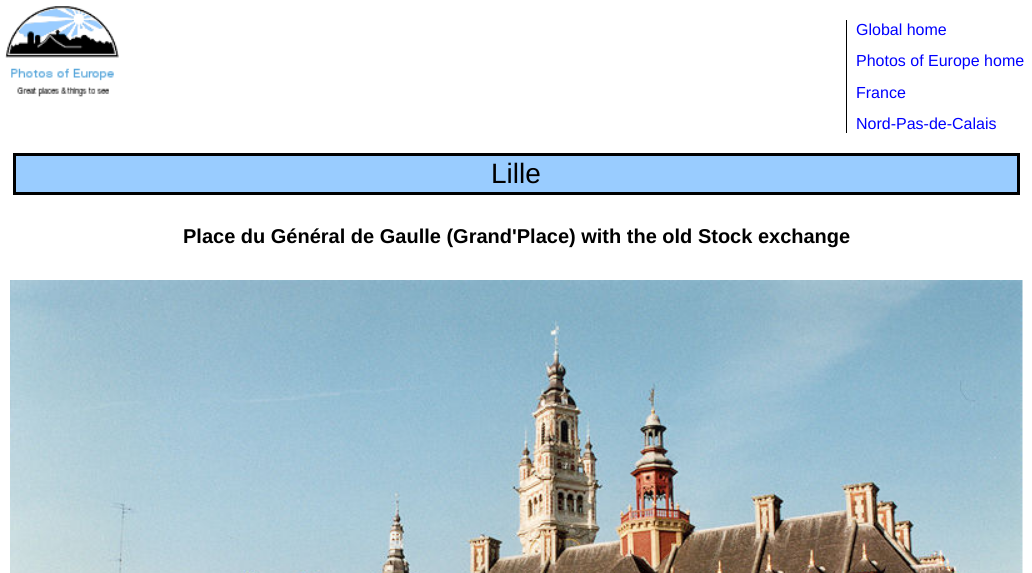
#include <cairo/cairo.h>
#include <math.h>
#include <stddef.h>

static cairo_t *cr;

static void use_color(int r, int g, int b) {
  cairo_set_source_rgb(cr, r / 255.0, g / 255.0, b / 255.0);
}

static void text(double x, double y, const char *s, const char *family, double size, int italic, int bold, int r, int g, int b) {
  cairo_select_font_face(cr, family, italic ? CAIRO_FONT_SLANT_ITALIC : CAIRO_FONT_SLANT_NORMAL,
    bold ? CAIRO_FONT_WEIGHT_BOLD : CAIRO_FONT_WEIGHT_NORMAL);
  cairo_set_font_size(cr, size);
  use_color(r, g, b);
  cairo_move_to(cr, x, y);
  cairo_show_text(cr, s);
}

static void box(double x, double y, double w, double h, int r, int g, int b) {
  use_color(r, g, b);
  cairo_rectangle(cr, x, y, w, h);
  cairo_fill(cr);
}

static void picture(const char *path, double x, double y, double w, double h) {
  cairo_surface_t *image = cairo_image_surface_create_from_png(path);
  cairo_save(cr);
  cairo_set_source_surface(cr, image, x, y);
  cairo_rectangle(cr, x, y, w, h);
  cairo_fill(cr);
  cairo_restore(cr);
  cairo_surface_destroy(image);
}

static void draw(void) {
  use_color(255, 255, 255);
  cairo_paint(cr);
  picture("img_01.png", 5, 6, 114, 91);
  box(846, 20, 1, 113, 0, 0, 0);
  use_color(153, 204, 255);
  cairo_rectangle(cr, 14.5, 154.5, 1004, 39);
  cairo_fill_preserve(cr);
  use_color(0, 0, 0);
  cairo_set_line_width(cr, 3);
  cairo_stroke(cr);
  picture("img_02.png", 10, 280, 1013, 293);
  text(856, 35, "Global home", "Liberation Sans", 16, 0, 0, 0, 0, 255);
  text(856, 66, "Photos of Europe home", "Liberation Sans", 16, 0, 0, 0, 0, 255);
  text(856, 98, "France", "Liberation Sans", 16, 0, 0, 0, 0, 255);
  text(856, 129, "Nord-Pas-de-Calais", "Liberation Sans", 16, 0, 0, 0, 0, 255);
  text(491, 183, "Lille", "Liberation Sans", 28, 0, 0, 0, 0, 0);
  text(183, 243, "Place du Général de Gaulle (Grand'Place) with the old Stock exchange", "Liberation Sans", 20, 0, 1, 0, 0, 0);
}

int main(void) {
  cairo_surface_t *surface = cairo_image_surface_create(CAIRO_FORMAT_RGB24, 1032, 573);
  cr = cairo_create(surface);
  cairo_font_options_t *options = cairo_font_options_create();
  cairo_font_options_set_hint_metrics(options, CAIRO_HINT_METRICS_OFF);
  cairo_font_options_set_hint_style(options, CAIRO_HINT_STYLE_NONE);
  cairo_set_font_options(cr, options);
  cairo_set_miter_limit(cr, 4);
  draw();
  cairo_surface_write_to_png(surface, "out.png");
  cairo_font_options_destroy(options);
  cairo_destroy(cr);
  cairo_surface_destroy(surface);
  return 0;
}
